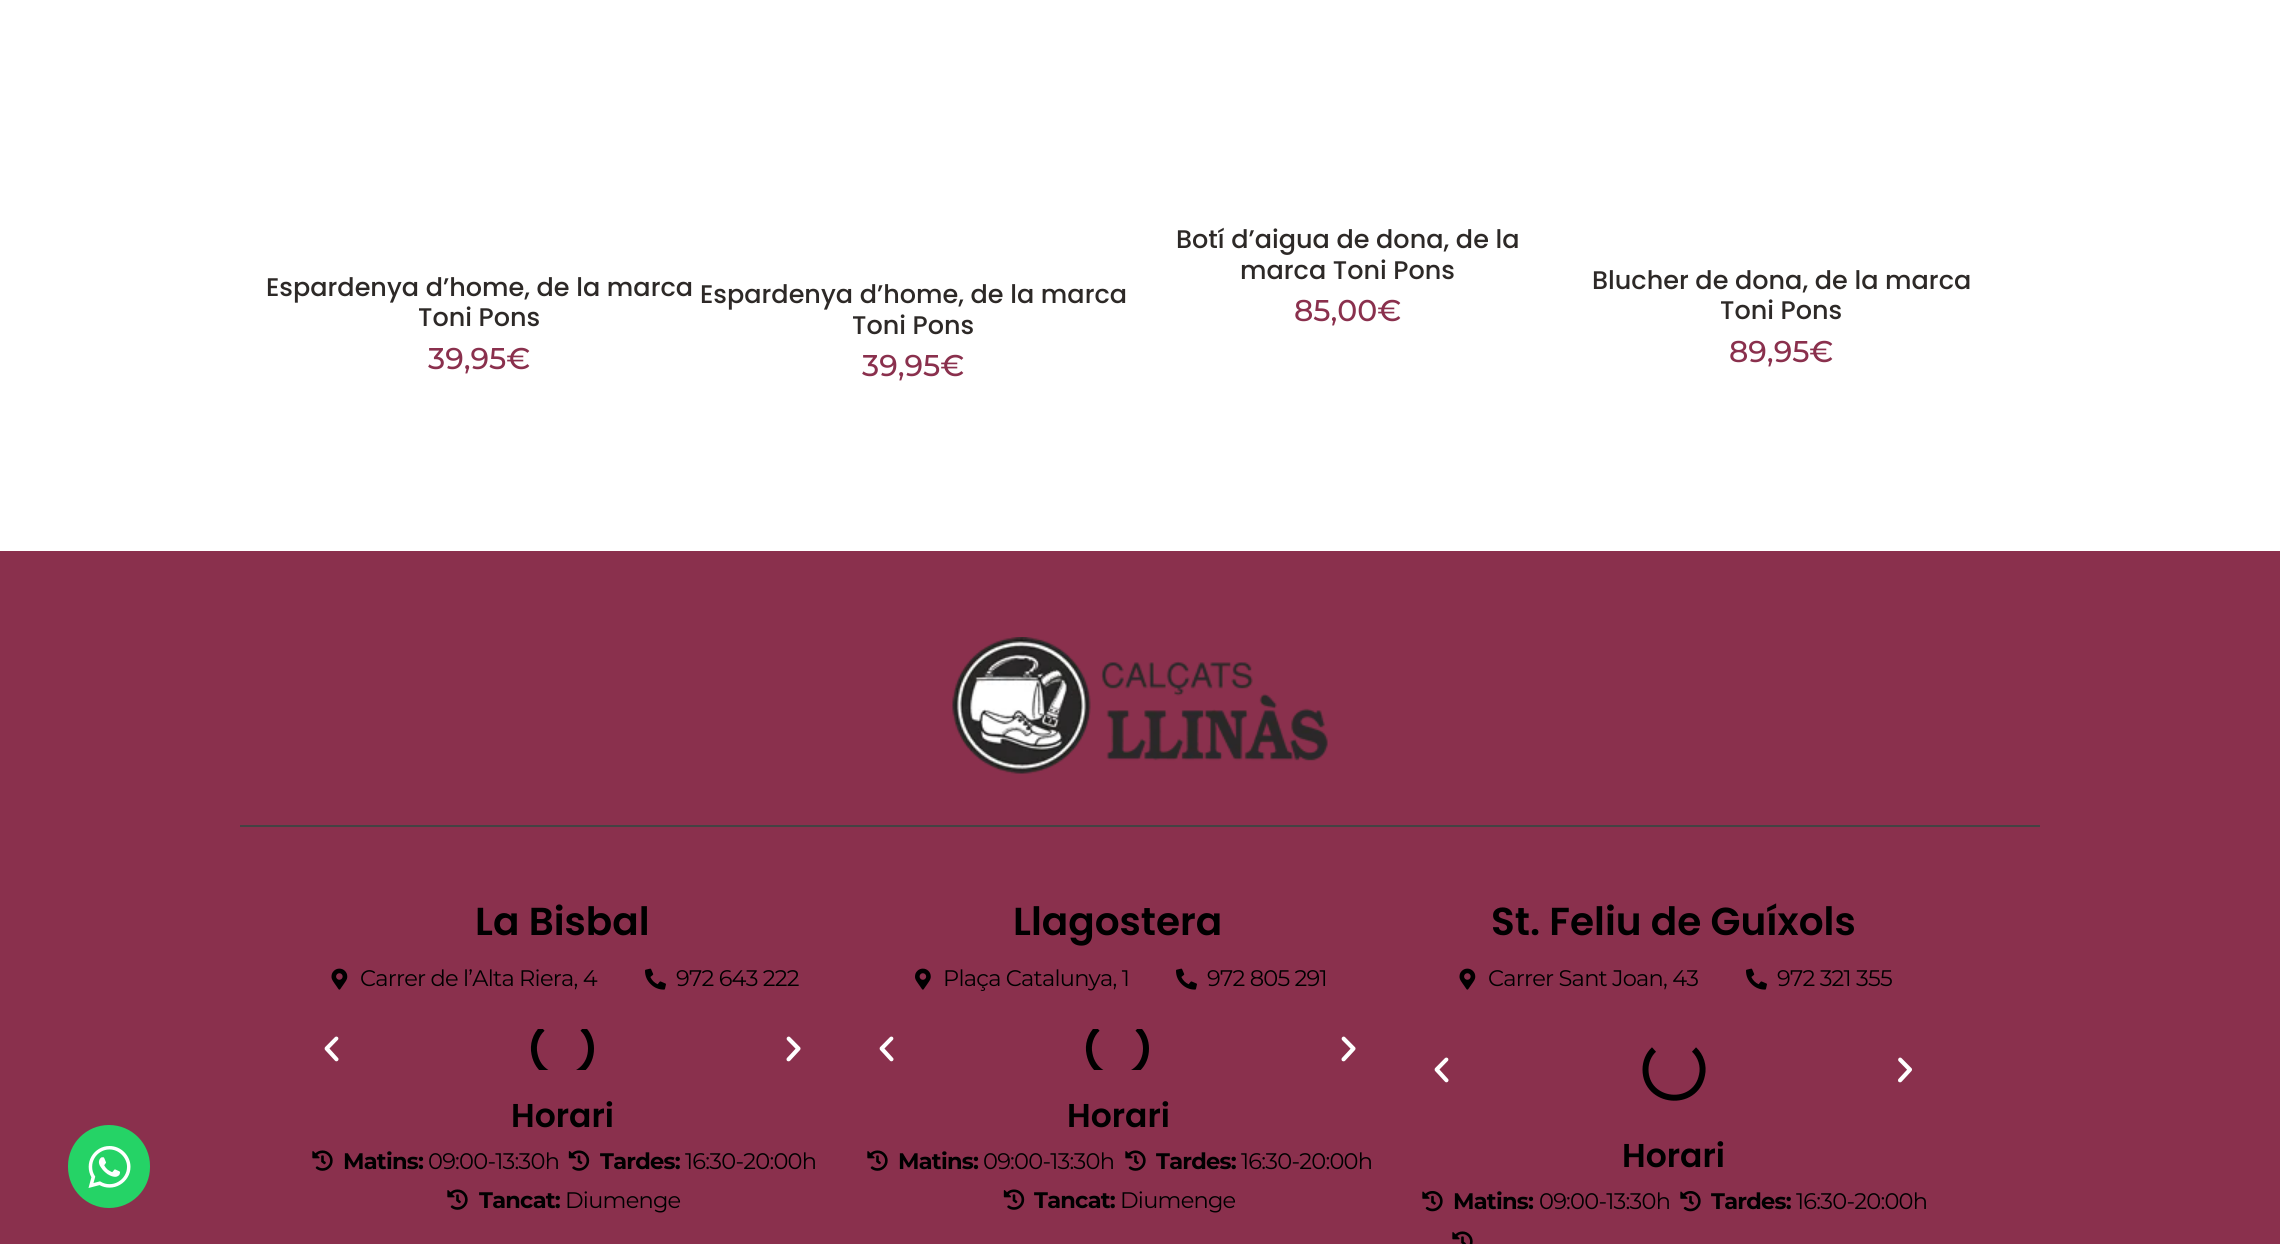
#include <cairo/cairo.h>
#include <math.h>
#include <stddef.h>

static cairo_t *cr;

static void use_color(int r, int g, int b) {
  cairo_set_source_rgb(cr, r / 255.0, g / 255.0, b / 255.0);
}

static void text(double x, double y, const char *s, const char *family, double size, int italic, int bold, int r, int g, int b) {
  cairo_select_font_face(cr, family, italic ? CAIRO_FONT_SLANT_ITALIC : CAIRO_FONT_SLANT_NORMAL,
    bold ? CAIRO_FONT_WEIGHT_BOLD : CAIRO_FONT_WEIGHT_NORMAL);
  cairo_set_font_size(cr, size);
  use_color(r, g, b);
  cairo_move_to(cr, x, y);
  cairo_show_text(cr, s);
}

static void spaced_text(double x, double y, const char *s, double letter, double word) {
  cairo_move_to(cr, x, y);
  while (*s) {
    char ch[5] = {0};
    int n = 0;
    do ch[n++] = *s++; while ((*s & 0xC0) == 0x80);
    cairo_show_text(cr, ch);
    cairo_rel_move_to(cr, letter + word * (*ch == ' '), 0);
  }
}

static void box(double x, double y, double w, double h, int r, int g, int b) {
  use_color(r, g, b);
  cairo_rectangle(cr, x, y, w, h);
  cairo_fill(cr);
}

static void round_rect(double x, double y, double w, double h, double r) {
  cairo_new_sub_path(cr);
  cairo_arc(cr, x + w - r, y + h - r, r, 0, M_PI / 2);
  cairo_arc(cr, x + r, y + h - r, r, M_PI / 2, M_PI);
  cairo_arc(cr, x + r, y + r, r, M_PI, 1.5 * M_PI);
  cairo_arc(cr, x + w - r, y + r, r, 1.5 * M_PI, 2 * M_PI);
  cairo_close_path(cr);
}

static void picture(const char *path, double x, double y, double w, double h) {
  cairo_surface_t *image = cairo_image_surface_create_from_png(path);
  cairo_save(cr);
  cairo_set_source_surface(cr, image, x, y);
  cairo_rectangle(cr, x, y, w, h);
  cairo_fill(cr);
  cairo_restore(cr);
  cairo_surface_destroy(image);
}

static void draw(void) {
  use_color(255, 255, 255);
  cairo_paint(cr);
  box(0, 551, 2280, 693, 138, 48, 77);
  use_color(37, 211, 102);
  round_rect(68, 1125, 82, 83, 41);
  cairo_fill(cr);
  picture("img_01.png", 88, 1146, 43, 42);
  box(240, 825, 1800, 2, 67, 67, 67);
  picture("img_02.png", 952, 637, 376, 137);
  picture("img_03.png", 331, 968, 17, 22);
  picture("img_04.png", 645, 968, 21, 22);
  picture("img_05.png", 324, 1036, 15, 26);
  cairo_save(cr);
  cairo_rectangle(cr, 300, 1029, 525, 41);
  cairo_clip(cr);
  cairo_new_path(cr);
  cairo_move_to(cr, 582.5, 1028.5);
  cairo_curve_to(cr, 588, 1033.5, 591, 1041, 591, 1048.5);
  cairo_curve_to(cr, 591, 1082.5, 541, 1087.5, 534.5, 1054);
  cairo_curve_to(cr, 532.5, 1045, 535.5, 1035, 542.5, 1028.5);
  use_color(0, 0, 0);
  cairo_set_line_width(cr, 6);
  cairo_stroke(cr);
  cairo_restore(cr);
  picture("img_06.png", 786, 1036, 15, 26);
  picture("img_07.png", 312, 1150, 21, 21);
  picture("img_08.png", 568, 1150, 22, 21);
  picture("img_07.png", 447, 1189, 21, 21);
  picture("img_09.png", 915, 968, 16, 22);
  picture("img_04.png", 1176, 968, 21, 22);
  picture("img_05.png", 879, 1036, 15, 26);
  cairo_save(cr);
  cairo_rectangle(cr, 855, 1029, 525, 41);
  cairo_clip(cr);
  cairo_new_path(cr);
  cairo_move_to(cr, 1137.5, 1028.5);
  cairo_curve_to(cr, 1143, 1033.5, 1146, 1041, 1146, 1048.5);
  cairo_curve_to(cr, 1146, 1082.5, 1096, 1087.5, 1089.5, 1054);
  cairo_curve_to(cr, 1087.5, 1045, 1090.5, 1035, 1097.5, 1028.5);
  use_color(0, 0, 0);
  cairo_set_line_width(cr, 6);
  cairo_stroke(cr);
  cairo_restore(cr);
  picture("img_06.png", 1341, 1036, 15, 26);
  picture("img_07.png", 867, 1150, 21, 21);
  picture("img_07.png", 1125, 1150, 21, 21);
  picture("img_08.png", 1003, 1189, 22, 21);
  picture("img_03.png", 1459, 968, 17, 22);
  picture("img_04.png", 1746, 968, 21, 22);
  picture("img_05.png", 1434, 1057, 15, 26);
  cairo_new_path(cr);
  cairo_move_to(cr, 1694, 1049.5);
  cairo_curve_to(cr, 1701, 1056, 1704, 1066, 1702, 1075);
  cairo_curve_to(cr, 1695.5, 1108.5, 1645.5, 1103.5, 1645.5, 1069.5);
  cairo_curve_to(cr, 1645.5, 1062, 1648.5, 1054.5, 1654, 1049.5);
  use_color(0, 0, 0);
  cairo_set_line_width(cr, 6);
  cairo_stroke(cr);
  picture("img_10.png", 1898, 1057, 14, 26);
  picture("img_11.png", 1422, 1191, 21, 21);
  picture("img_11.png", 1680, 1191, 21, 21);
  picture("img_12.png", 1452, 1231, 21, 13);
  text(266, 296, "Espardenya d’home, de la marca", "Poppins Medium", 25.5, 0, 0, 45, 41, 39);
  text(418, 326, "Toni Pons", "Poppins Medium", 25.5, 0, 0, 45, 41, 39);
  text(428, 369, "39,95€", "Montserrat Medium", 30, 0, 0, 138, 48, 77);
  text(700, 303, "Espardenya d’home, de la marca", "Poppins Medium", 25.5, 0, 0, 45, 41, 39);
  text(852, 334, "Toni Pons", "Poppins Medium", 25.5, 0, 0, 45, 41, 39);
  text(862, 376, "39,95€", "Montserrat Medium", 30, 0, 0, 138, 48, 77);
  text(1176, 248, "Botí d’aigua de dona, de la", "Poppins Medium", 25.5, 0, 0, 45, 41, 39);
  text(1240, 279, "marca Toni Pons", "Poppins Medium", 25.5, 0, 0, 45, 41, 39);
  text(1294, 321, "85,00€", "Montserrat Medium", 30, 0, 0, 138, 48, 77);
  text(1592, 289, "Blucher de dona, de la marca", "Poppins Medium", 25.5, 0, 0, 45, 41, 39);
  text(1720, 319, "Toni Pons", "Poppins Medium", 25.5, 0, 0, 45, 41, 39);
  text(1729, 362, "89,95€", "Montserrat Medium", 30, 0, 0, 138, 48, 77);
  text(475, 935, "La Bisbal", "Poppins SemiBold", 39, 0, 0, 0, 0, 0);
  cairo_select_font_face(cr, "Montserrat", CAIRO_FONT_SLANT_NORMAL, CAIRO_FONT_WEIGHT_NORMAL);
  cairo_set_font_size(cr, 22.5);
  spaced_text(360, 986, "Carrer de l’Alta Riera, 4", -0.75, 0);
  spaced_text(676, 986, "972 643 222", -0.75, 0);
  text(511, 1127, "Horari", "Poppins SemiBold", 33, 0, 0, 0, 0, 0);
  cairo_select_font_face(cr, "Montserrat", CAIRO_FONT_SLANT_NORMAL, CAIRO_FONT_WEIGHT_BOLD);
  cairo_set_font_size(cr, 22.5);
  spaced_text(343, 1169, "Matins:", -0.75, 0);
  cairo_select_font_face(cr, "Montserrat", CAIRO_FONT_SLANT_NORMAL, CAIRO_FONT_WEIGHT_NORMAL);
  spaced_text(428, 1169, "09:00-13:30h", -0.75, 0);
  cairo_select_font_face(cr, "Montserrat", CAIRO_FONT_SLANT_NORMAL, CAIRO_FONT_WEIGHT_BOLD);
  spaced_text(600, 1169, "Tardes:", -0.75, 0);
  cairo_select_font_face(cr, "Montserrat", CAIRO_FONT_SLANT_NORMAL, CAIRO_FONT_WEIGHT_NORMAL);
  spaced_text(685, 1169, "16:30-20:00h", -0.75, 0);
  cairo_select_font_face(cr, "Montserrat", CAIRO_FONT_SLANT_NORMAL, CAIRO_FONT_WEIGHT_BOLD);
  spaced_text(479, 1208, "Tancat:", -0.75, 0);
  cairo_select_font_face(cr, "Montserrat", CAIRO_FONT_SLANT_NORMAL, CAIRO_FONT_WEIGHT_NORMAL);
  spaced_text(565, 1208, "Diumenge", -0.75, 0);
  text(1013, 935, "Llagostera", "Poppins SemiBold", 39, 0, 0, 0, 0, 0);
  cairo_select_font_face(cr, "Montserrat", CAIRO_FONT_SLANT_NORMAL, CAIRO_FONT_WEIGHT_NORMAL);
  cairo_set_font_size(cr, 22.5);
  spaced_text(943, 986, "Plaça Catalunya, 1", -0.75, 0);
  spaced_text(1207, 986, "972 805 291", -0.75, 0);
  text(1067, 1127, "Horari", "Poppins SemiBold", 33, 0, 0, 0, 0, 0);
  cairo_select_font_face(cr, "Montserrat", CAIRO_FONT_SLANT_NORMAL, CAIRO_FONT_WEIGHT_BOLD);
  cairo_set_font_size(cr, 22.5);
  spaced_text(898, 1169, "Matins:", -0.75, 0);
  cairo_select_font_face(cr, "Montserrat", CAIRO_FONT_SLANT_NORMAL, CAIRO_FONT_WEIGHT_NORMAL);
  spaced_text(983, 1169, "09:00-13:30h", -0.75, 0);
  cairo_select_font_face(cr, "Montserrat", CAIRO_FONT_SLANT_NORMAL, CAIRO_FONT_WEIGHT_BOLD);
  spaced_text(1156, 1169, "Tardes:", -0.75, 0);
  cairo_select_font_face(cr, "Montserrat", CAIRO_FONT_SLANT_NORMAL, CAIRO_FONT_WEIGHT_NORMAL);
  spaced_text(1241, 1169, "16:30-20:00h", -0.75, 0);
  cairo_select_font_face(cr, "Montserrat", CAIRO_FONT_SLANT_NORMAL, CAIRO_FONT_WEIGHT_BOLD);
  spaced_text(1034, 1208, "Tancat:", -0.75, 0);
  cairo_select_font_face(cr, "Montserrat", CAIRO_FONT_SLANT_NORMAL, CAIRO_FONT_WEIGHT_NORMAL);
  spaced_text(1120, 1208, "Diumenge", -0.75, 0);
  text(1491, 935, "St. Feliu de Guíxols", "Poppins SemiBold", 39, 0, 0, 0, 0, 0);
  cairo_select_font_face(cr, "Montserrat", CAIRO_FONT_SLANT_NORMAL, CAIRO_FONT_WEIGHT_NORMAL);
  cairo_set_font_size(cr, 22.5);
  spaced_text(1488, 986, "Carrer Sant Joan, 43", -0.75, 0);
  spaced_text(1777, 986, "972 321 355", -0.75, 0);
  text(1622, 1167, "Horari", "Poppins SemiBold", 33, 0, 0, 0, 0, 0);
  cairo_select_font_face(cr, "Montserrat", CAIRO_FONT_SLANT_NORMAL, CAIRO_FONT_WEIGHT_BOLD);
  cairo_set_font_size(cr, 22.5);
  spaced_text(1453, 1209, "Matins:", -0.75, 0);
  cairo_select_font_face(cr, "Montserrat", CAIRO_FONT_SLANT_NORMAL, CAIRO_FONT_WEIGHT_NORMAL);
  spaced_text(1539, 1209, "09:00-13:30h", -0.75, 0);
  cairo_select_font_face(cr, "Montserrat", CAIRO_FONT_SLANT_NORMAL, CAIRO_FONT_WEIGHT_BOLD);
  spaced_text(1711, 1209, "Tardes:", -0.75, 0);
  cairo_select_font_face(cr, "Montserrat", CAIRO_FONT_SLANT_NORMAL, CAIRO_FONT_WEIGHT_NORMAL);
  spaced_text(1796, 1209, "16:30-20:00h", -0.75, 0);
}

int main(void) {
  cairo_surface_t *surface = cairo_image_surface_create(CAIRO_FORMAT_RGB24, 2280, 1244);
  cr = cairo_create(surface);
  cairo_font_options_t *options = cairo_font_options_create();
  cairo_font_options_set_hint_metrics(options, CAIRO_HINT_METRICS_OFF);
  cairo_font_options_set_hint_style(options, CAIRO_HINT_STYLE_NONE);
  cairo_set_font_options(cr, options);
  cairo_set_miter_limit(cr, 4);
  draw();
  cairo_surface_write_to_png(surface, "out.png");
  cairo_font_options_destroy(options);
  cairo_destroy(cr);
  cairo_surface_destroy(surface);
  return 0;
}
